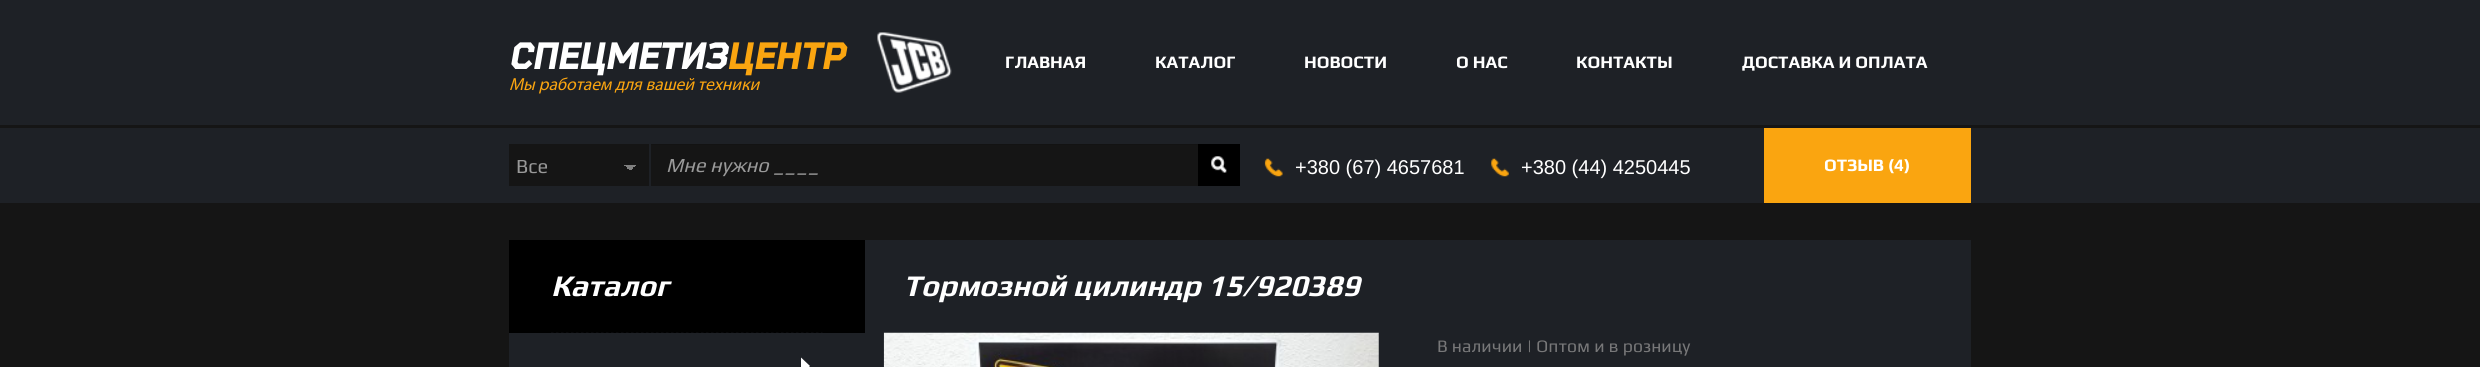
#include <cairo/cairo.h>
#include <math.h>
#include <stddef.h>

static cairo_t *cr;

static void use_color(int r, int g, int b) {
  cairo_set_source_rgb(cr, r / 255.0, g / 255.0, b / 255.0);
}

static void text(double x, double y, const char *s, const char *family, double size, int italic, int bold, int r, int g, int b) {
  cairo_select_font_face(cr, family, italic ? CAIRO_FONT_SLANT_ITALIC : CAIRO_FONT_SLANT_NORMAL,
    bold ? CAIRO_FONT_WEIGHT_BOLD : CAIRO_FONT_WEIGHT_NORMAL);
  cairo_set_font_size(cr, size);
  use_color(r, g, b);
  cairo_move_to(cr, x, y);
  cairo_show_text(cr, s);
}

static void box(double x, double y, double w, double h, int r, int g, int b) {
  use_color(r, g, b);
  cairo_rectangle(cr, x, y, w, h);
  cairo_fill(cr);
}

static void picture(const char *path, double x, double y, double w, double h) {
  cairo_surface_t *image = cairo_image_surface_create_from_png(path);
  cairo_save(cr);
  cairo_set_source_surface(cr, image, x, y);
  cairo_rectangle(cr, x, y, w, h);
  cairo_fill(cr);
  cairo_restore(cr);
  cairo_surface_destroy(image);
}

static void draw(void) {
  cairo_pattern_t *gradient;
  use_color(21, 21, 21);
  cairo_paint(cr);
  box(0, 0, 2480, 203, 30, 33, 38);
  box(0, 125, 2480, 3, 21, 21, 21);
  picture("img_01.png", 877, 32, 75, 61);
  box(509, 144, 140, 42, 21, 21, 21);
  gradient = cairo_pattern_create_linear(630, 165, 636, 171);
  cairo_pattern_add_color_stop_rgba(gradient, 0.5, 0.502, 0.502, 0.502, 1);
  cairo_pattern_add_color_stop_rgba(gradient, 0.5, 0.082, 0.082, 0.082, 1);
  cairo_set_source(cr, gradient);
  cairo_pattern_destroy(gradient);
  cairo_rectangle(cr, 630, 165, 6, 5);
  cairo_fill(cr);
  gradient = cairo_pattern_create_linear(624, 171, 630, 165);
  cairo_pattern_add_color_stop_rgba(gradient, 0.5, 0.082, 0.082, 0.082, 1);
  cairo_pattern_add_color_stop_rgba(gradient, 0.5, 0.502, 0.502, 0.502, 1);
  cairo_set_source(cr, gradient);
  cairo_pattern_destroy(gradient);
  cairo_rectangle(cr, 624, 165, 6, 5);
  cairo_fill(cr);
  box(651, 145, 547, 41, 21, 21, 21);
  box(651, 144, 547, 1, 19, 19, 19);
  box(1198, 144, 42, 42, 0, 0, 0);
  picture("img_02.png", 1211, 156, 16, 17);
  picture("img_03.png", 1264, 158, 19, 19);
  picture("img_04.png", 1491, 158, 18, 19);
  box(1764, 128, 207, 75, 250, 165, 16);
  box(509, 240, 1462, 127, 30, 33, 38);
  box(509, 240, 356, 93, 0, 0, 0);
  cairo_new_path(cr);
  cairo_move_to(cr, 551, 334);
  cairo_line_to(cr, 822.5, 334);
  use_color(30, 33, 38);
  cairo_set_line_width(cr, 2.5);
  cairo_set_dash(cr, (double[]){2.5, 2.5}, 2, 0);
  cairo_stroke(cr);
  use_color(255, 255, 255);
  cairo_new_path(cr);
  cairo_move_to(cr, 801, 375);
  cairo_line_to(cr, 801, 357.5);
  cairo_line_to(cr, 810, 366);
  cairo_close_path(cr);
  cairo_fill(cr);
  picture("img_05.png", 883, 332, 496, 35);
  text(509, 69, "СПЕЦМЕТИЗ", "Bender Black", 37.5, 1, 0, 255, 255, 255);
  text(727, 69, "ЦЕНТР", "Bender Black", 37.5, 1, 0, 250, 165, 16);
  text(509, 90, "Мы работаем для вашей техники", "Myriad", 17.5, 1, 0, 250, 165, 16);
  text(1005, 68, "ГЛАВНАЯ", "Play", 17.5, 0, 1, 255, 255, 255);
  text(1155, 68, "КАТАЛОГ", "Play", 17.5, 0, 1, 255, 255, 255);
  text(1304, 68, "НОВОСТИ", "Play", 17.5, 0, 1, 255, 255, 255);
  text(1456, 68, "О НАС", "Play", 17.5, 0, 1, 255, 255, 255);
  text(1576, 68, "КОНТАКТЫ", "Play", 17.5, 0, 1, 255, 255, 255);
  text(1742, 68, "ДОСТАВКА И ОПЛАТА", "Play", 17.5, 0, 1, 255, 255, 255);
  text(516, 173, "Все", "Play", 20, 0, 0, 153, 153, 153);
  text(666, 172, "Мне нужно ____", "Play", 20, 1, 0, 153, 153, 153);
  text(1295, 174, "+380 (67) 4657681", "Liberation Sans", 20, 0, 0, 255, 255, 255);
  text(1521, 174, "+380 (44) 4250445", "Liberation Sans", 20, 0, 0, 255, 255, 255);
  text(1824, 171, "ОТЗЫВ (4)", "Play", 17.5, 0, 1, 255, 255, 255);
  text(551, 296, "Каталог", "Play", 30, 1, 1, 255, 255, 255);
  text(903, 296, "Тормозной цилиндр 15/920389", "Play", 30, 1, 1, 255, 255, 255);
  text(1437, 352, "В наличии | Оптом и в розницу", "Play", 17.6, 0, 0, 120, 120, 121);
}

int main(void) {
  cairo_surface_t *surface = cairo_image_surface_create(CAIRO_FORMAT_RGB24, 2480, 367);
  cr = cairo_create(surface);
  cairo_font_options_t *options = cairo_font_options_create();
  cairo_font_options_set_hint_metrics(options, CAIRO_HINT_METRICS_OFF);
  cairo_font_options_set_hint_style(options, CAIRO_HINT_STYLE_NONE);
  cairo_set_font_options(cr, options);
  cairo_set_miter_limit(cr, 4);
  draw();
  cairo_surface_write_to_png(surface, "out.png");
  cairo_font_options_destroy(options);
  cairo_destroy(cr);
  cairo_surface_destroy(surface);
  return 0;
}
